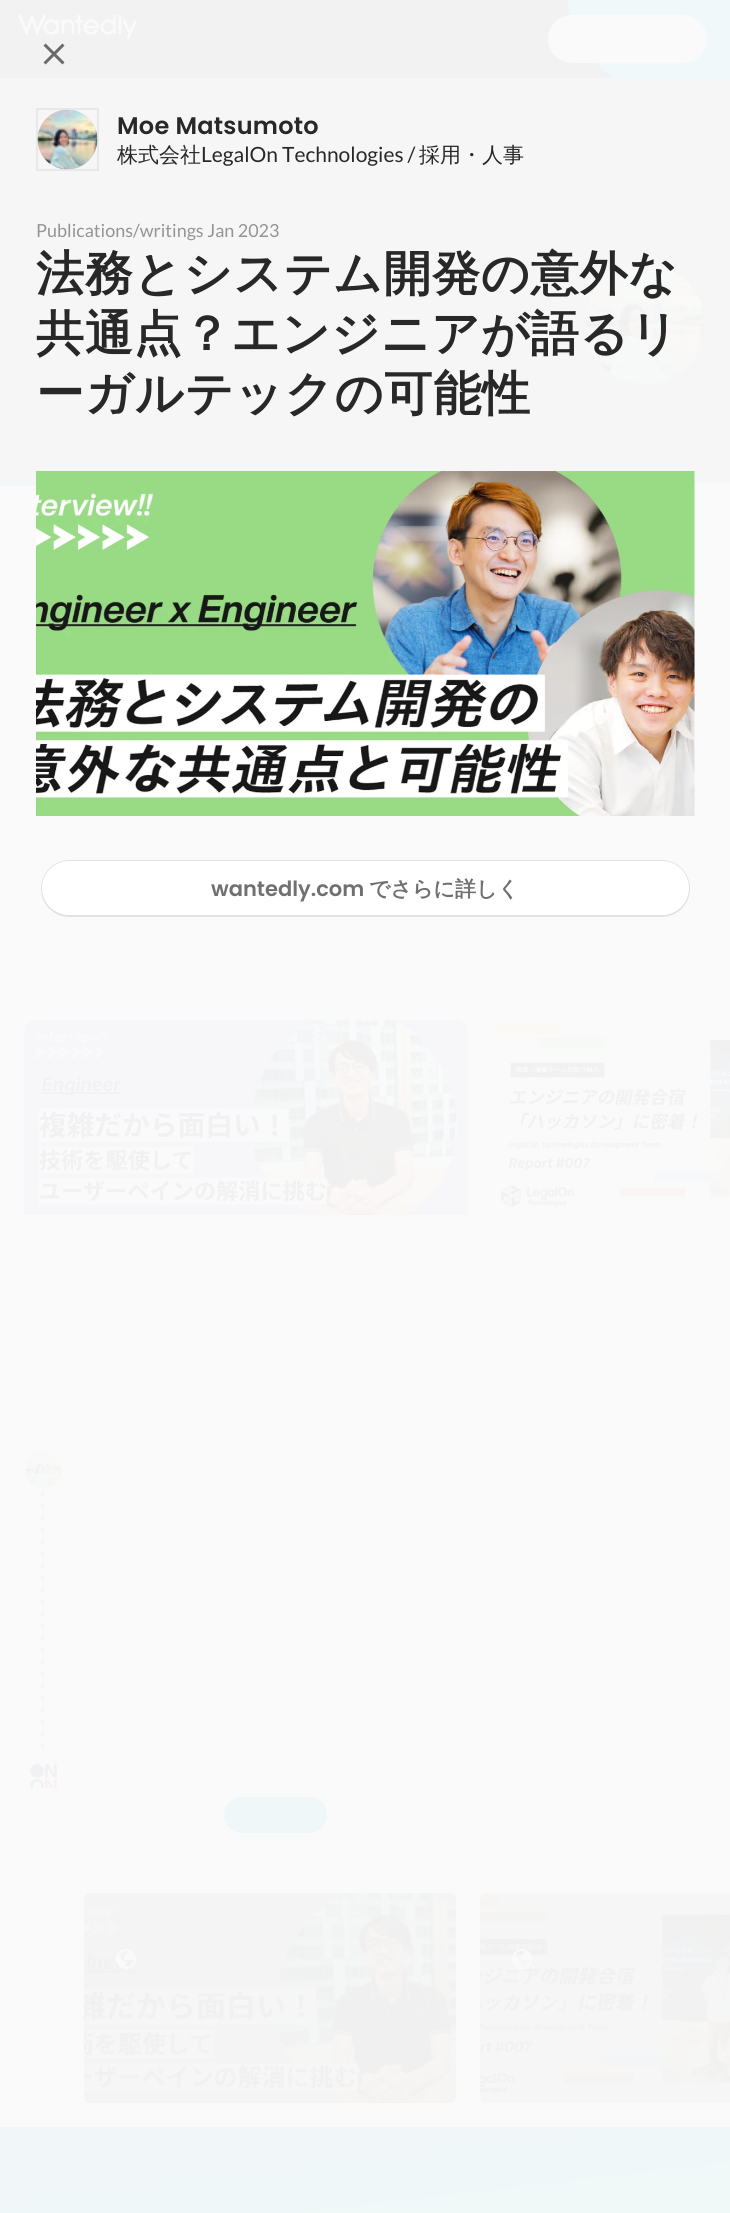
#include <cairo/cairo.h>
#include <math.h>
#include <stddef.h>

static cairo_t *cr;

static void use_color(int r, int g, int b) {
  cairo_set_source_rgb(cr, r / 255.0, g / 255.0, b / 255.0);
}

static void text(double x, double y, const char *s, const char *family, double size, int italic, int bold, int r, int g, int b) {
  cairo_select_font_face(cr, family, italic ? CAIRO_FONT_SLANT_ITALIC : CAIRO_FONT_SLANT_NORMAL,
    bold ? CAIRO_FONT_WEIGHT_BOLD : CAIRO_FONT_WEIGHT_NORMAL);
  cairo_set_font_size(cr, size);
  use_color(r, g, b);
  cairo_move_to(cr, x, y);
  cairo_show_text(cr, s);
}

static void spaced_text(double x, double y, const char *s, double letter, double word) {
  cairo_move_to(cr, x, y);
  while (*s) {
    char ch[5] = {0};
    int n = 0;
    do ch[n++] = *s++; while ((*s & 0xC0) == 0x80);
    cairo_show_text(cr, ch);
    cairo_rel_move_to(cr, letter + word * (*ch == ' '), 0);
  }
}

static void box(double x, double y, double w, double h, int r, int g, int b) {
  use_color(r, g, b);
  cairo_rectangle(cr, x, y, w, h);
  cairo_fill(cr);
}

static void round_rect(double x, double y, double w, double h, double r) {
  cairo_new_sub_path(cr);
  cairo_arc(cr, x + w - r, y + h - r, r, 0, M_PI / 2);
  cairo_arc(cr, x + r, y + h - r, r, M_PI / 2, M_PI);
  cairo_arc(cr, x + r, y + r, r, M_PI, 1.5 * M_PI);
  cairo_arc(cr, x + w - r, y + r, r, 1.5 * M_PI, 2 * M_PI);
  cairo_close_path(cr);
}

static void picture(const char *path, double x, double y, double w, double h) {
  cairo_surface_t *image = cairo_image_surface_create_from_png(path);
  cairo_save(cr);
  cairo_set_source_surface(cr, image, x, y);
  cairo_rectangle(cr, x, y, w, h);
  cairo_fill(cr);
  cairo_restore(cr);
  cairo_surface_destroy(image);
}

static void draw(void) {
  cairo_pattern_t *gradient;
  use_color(250, 250, 250);
  cairo_paint(cr);
  box(0, 0, 614, 78, 242, 242, 242);
  picture("img_01.png", 18, 15, 120, 24);
  use_color(240, 248, 249);
  round_rect(566, -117, 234, 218, 117);
  cairo_fill(cr);
  use_color(250, 250, 250);
  round_rect(548, 15, 159, 48, 24);
  cairo_fill(cr);
  box(0, 78, 730, 405, 246, 246, 246);
  picture("img_02.png", 36, 114, 14, 16);
  picture("img_03.png", 585, 264, 120, 120);
  box(0, 483, 36, 3, 241, 248, 249);
  picture("img_04.png", 43, 43, 22, 22);
  cairo_rectangle(cr, 37, 109, 61, 61);
  cairo_set_source_rgba(cr, 0, 0, 0, 0.06);
  cairo_stroke(cr);
  picture("img_05.png", 37, 109, 61, 61);
  picture("img_06.png", 36, 471, 659, 345);
  round_rect(42, 861, 647, 55, 27.5);
  cairo_set_source_rgba(cr, 0, 0, 0, 0.1);
  cairo_stroke(cr);
  use_color(255, 255, 255);
  round_rect(42, 861, 647, 54, 27);
  cairo_fill(cr);
  picture("img_07.png", 24, 1020, 444, 195);
  picture("img_08.png", 492, 1020, 238, 188);
  picture("img_10.png", 41, 1487, 3, 261);
  picture("img_09.png", 25, 1452, 37, 36);
  picture("img_11.png", 26, 1758, 35, 36);
  use_color(240, 247, 248);
  round_rect(224, 1797, 103, 36, 18);
  cairo_fill(cr);
  picture("img_12.png", 84, 1893, 372, 210);
  picture("img_13.png", 116, 1949, 20, 20);
  picture("img_14.png", 480, 1893, 250, 210);
  picture("img_15.png", 512, 1949, 20, 20);
  gradient = cairo_pattern_create_linear(355, 2085, 375, 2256);
  cairo_pattern_add_color_stop_rgba(gradient, 0, 0.945, 0.965, 0.976, 1);
  cairo_pattern_add_color_stop_rgba(gradient, 1, 0.941, 0.973, 0.973, 1);
  cairo_set_source(cr, gradient);
  cairo_pattern_destroy(gradient);
  cairo_rectangle(cr, 0, 2127, 730, 86);
  cairo_fill(cr);
  cairo_select_font_face(cr, "Poppins SemiBold", CAIRO_FONT_SLANT_NORMAL, CAIRO_FONT_WEIGHT_NORMAL);
  cairo_set_font_size(cr, 24);
  use_color(40, 40, 40);
  spaced_text(117, 134, "Moe Matsumoto", 0.25, 0);
  text(117, 162, "株式会社", "WenQuanYi Zen Hei Medium", 21, 0, 0, 40, 40, 40);
  text(201, 162, "LegalOn Technologies /", "Lato", 21, 0, 0, 40, 40, 40);
  text(419, 162, "採用・人事", "WenQuanYi Zen Hei Medium", 21, 0, 0, 40, 40, 40);
  text(36, 237, "Publications/writings Jan 2023", "Lato", 18, 0, 0, 148, 148, 148);
  cairo_select_font_face(cr, "WenQuanYi Zen Hei", CAIRO_FONT_SLANT_NORMAL, CAIRO_FONT_WEIGHT_BOLD);
  cairo_set_font_size(cr, 48);
  use_color(40, 40, 40);
  spaced_text(36, 290, "法務とシステム開発の意外な", 0.8, 0);
  spaced_text(36, 350, "共通点？エンジニアが語るリ", 0.8, 0);
  spaced_text(36, 410, "ーガルテックの可能性", 0.8, 0);
  text(211, 896, "wantedly.com", "Poppins SemiBold", 21, 0, 0, 112, 112, 112);
  text(369, 896, "でさらに詳しく", "WenQuanYi Zen Hei", 21, 0, 1, 112, 112, 112);
}

int main(void) {
  cairo_surface_t *surface = cairo_image_surface_create(CAIRO_FORMAT_RGB24, 730, 2213);
  cr = cairo_create(surface);
  cairo_font_options_t *options = cairo_font_options_create();
  cairo_font_options_set_hint_metrics(options, CAIRO_HINT_METRICS_OFF);
  cairo_font_options_set_hint_style(options, CAIRO_HINT_STYLE_NONE);
  cairo_set_font_options(cr, options);
  cairo_set_miter_limit(cr, 4);
  draw();
  cairo_surface_write_to_png(surface, "out.png");
  cairo_font_options_destroy(options);
  cairo_destroy(cr);
  cairo_surface_destroy(surface);
  return 0;
}
